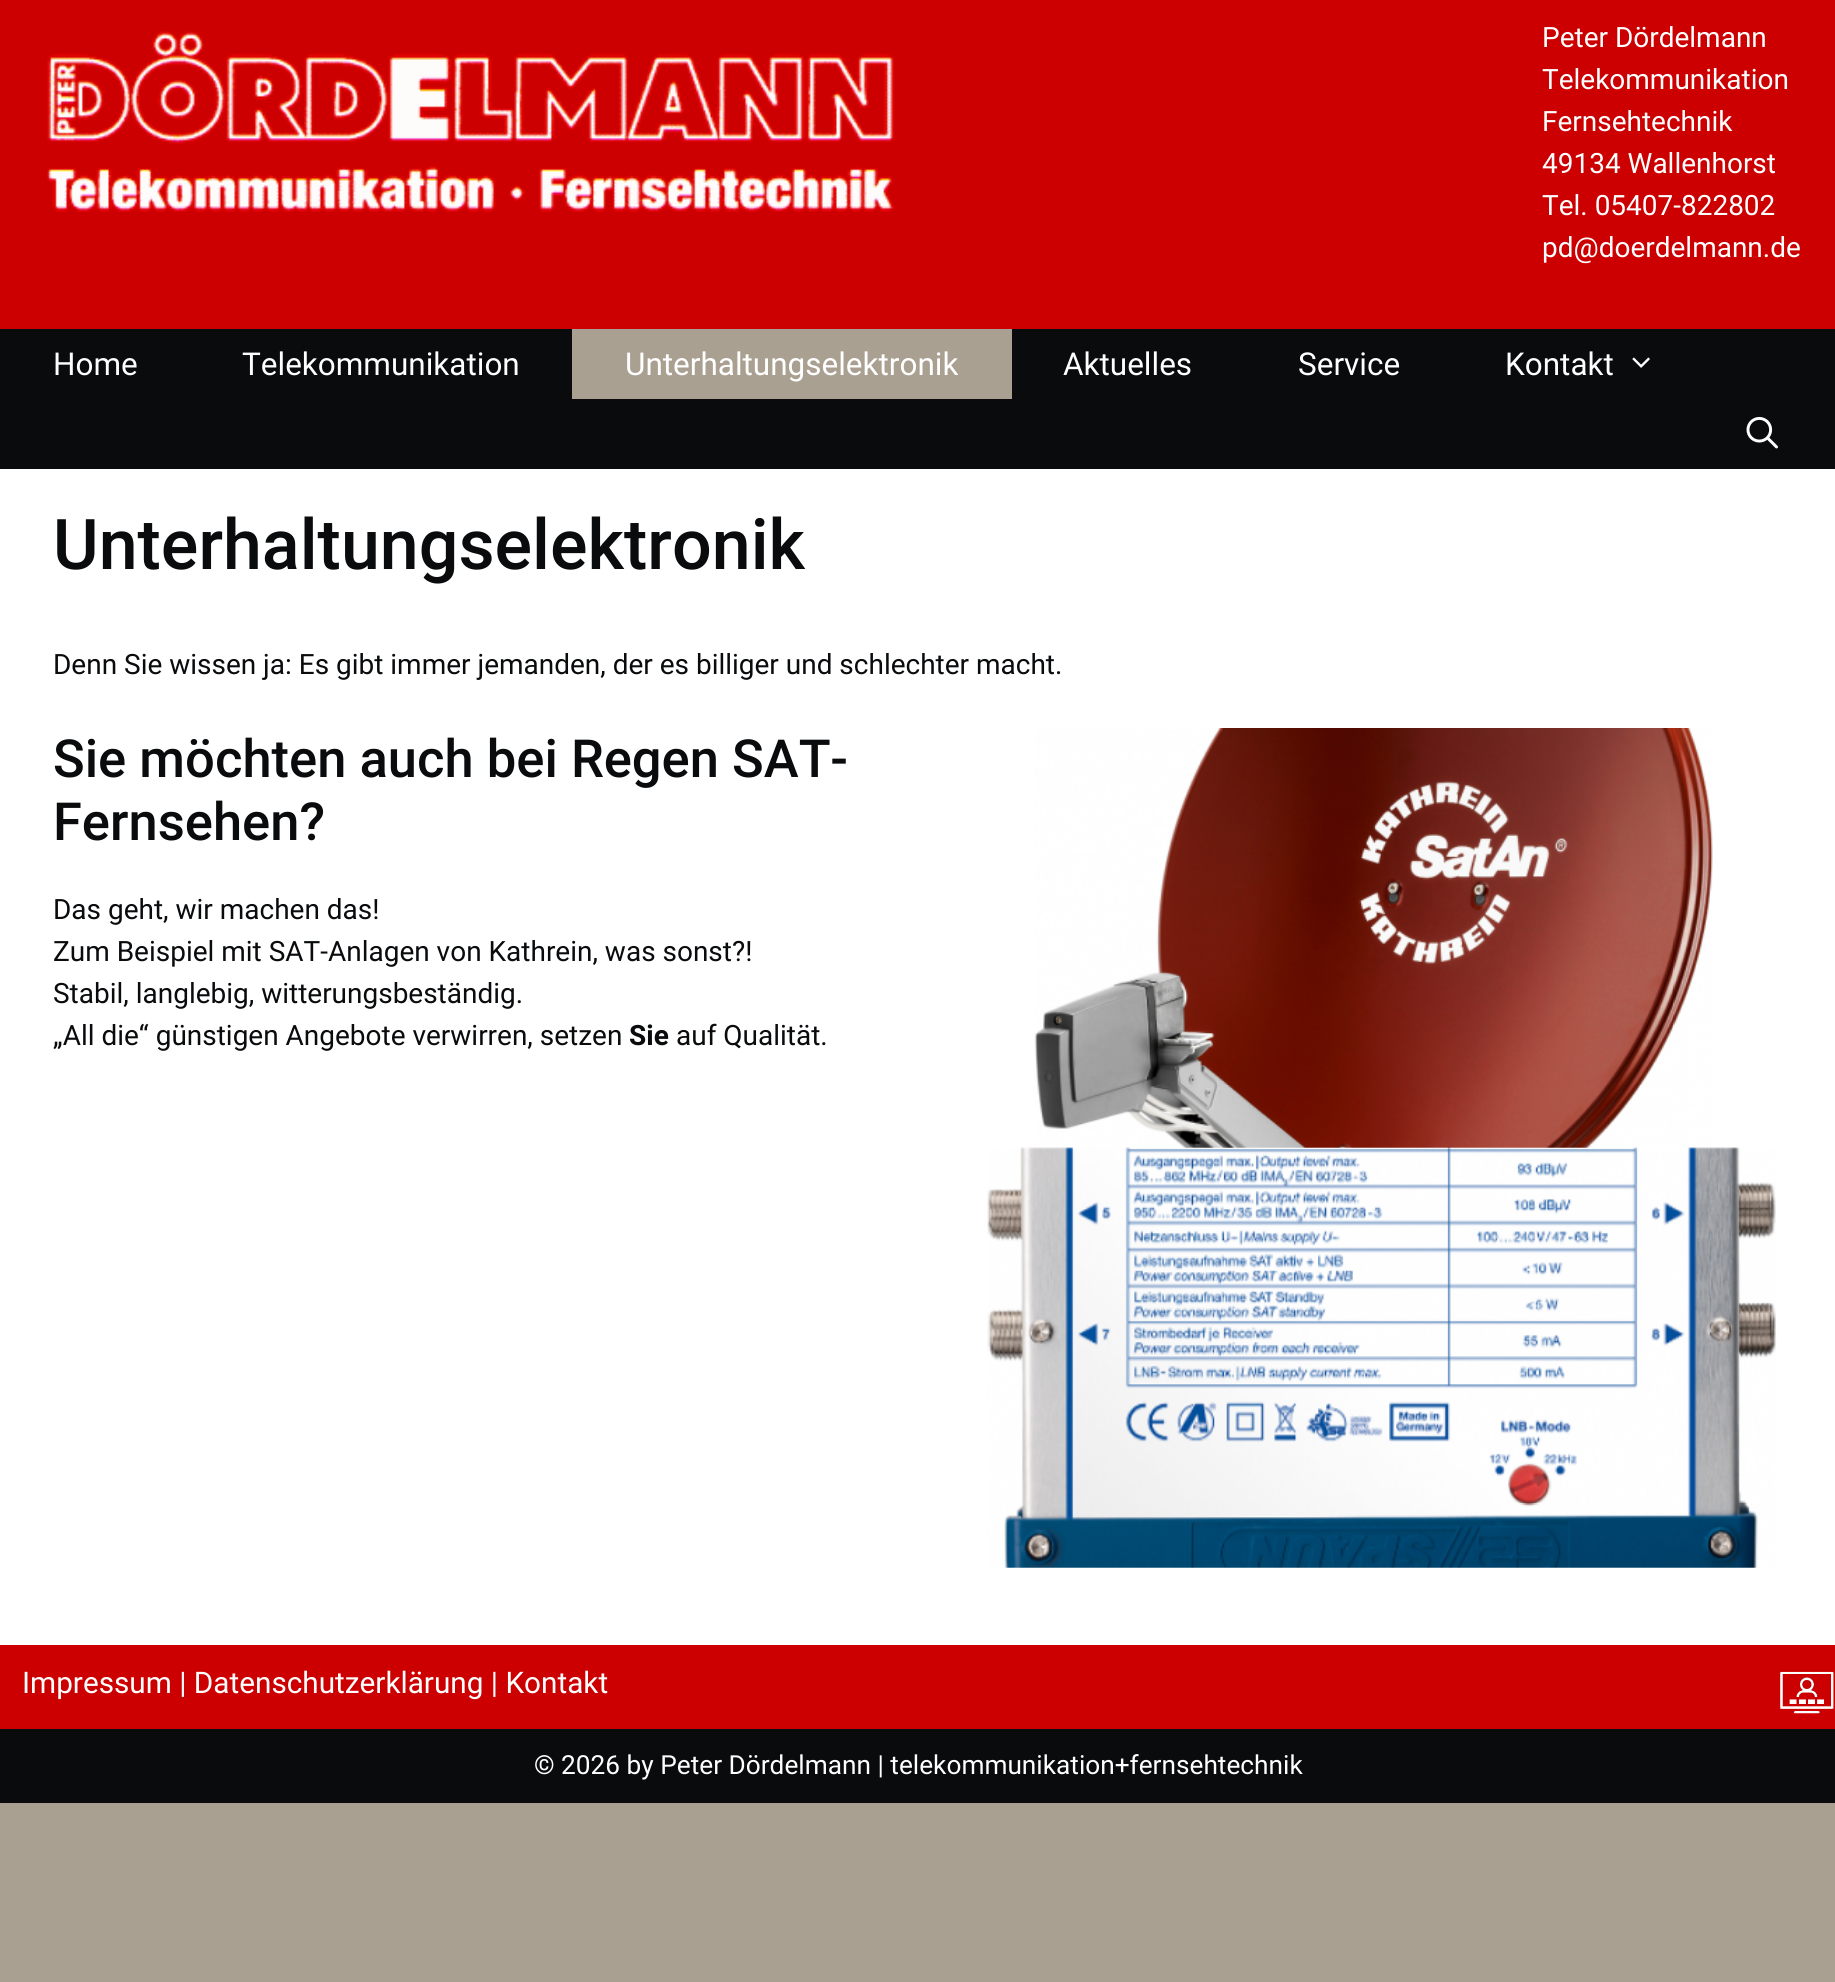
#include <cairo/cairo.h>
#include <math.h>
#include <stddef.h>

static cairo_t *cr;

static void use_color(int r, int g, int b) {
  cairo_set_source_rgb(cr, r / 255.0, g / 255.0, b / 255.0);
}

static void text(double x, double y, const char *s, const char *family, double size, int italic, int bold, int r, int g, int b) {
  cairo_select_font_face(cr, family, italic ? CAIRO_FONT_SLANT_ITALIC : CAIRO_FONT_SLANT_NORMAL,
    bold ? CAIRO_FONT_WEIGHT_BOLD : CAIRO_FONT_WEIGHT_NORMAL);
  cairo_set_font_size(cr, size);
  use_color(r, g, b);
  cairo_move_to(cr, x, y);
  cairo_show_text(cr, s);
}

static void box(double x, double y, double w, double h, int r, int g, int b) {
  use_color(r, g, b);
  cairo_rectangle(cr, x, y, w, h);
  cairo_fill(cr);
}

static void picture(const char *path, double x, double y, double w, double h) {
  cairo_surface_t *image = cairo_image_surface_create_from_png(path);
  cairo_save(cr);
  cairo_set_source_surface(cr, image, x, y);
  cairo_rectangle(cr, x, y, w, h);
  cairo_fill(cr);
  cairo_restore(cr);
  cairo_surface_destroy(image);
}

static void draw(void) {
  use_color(169, 160, 145);
  cairo_paint(cr);
  box(0, 0, 1835, 329, 204, 0, 0);
  picture("img_01.png", 47, 31, 848, 181);
  box(0, 329, 1835, 140, 9, 11, 13);
  box(572, 329, 440, 70, 169, 160, 145);
  picture("img_02.png", 1632, 357, 18, 11);
  picture("img_03.png", 1746, 416, 32, 33);
  box(0, 469, 1835, 1176, 255, 255, 255);
  picture("img_04.png", 1034, 728, 679, 420);
  picture("img_05.png", 987, 1147, 790, 421);
  box(0, 1645, 1835, 84, 204, 0, 0);
  picture("img_06.png", 1780, 1671, 54, 43);
  box(0, 1729, 1835, 74, 9, 11, 13);
  text(1542, 47, "Peter Dördelmann", "Roboto", 28, 0, 0, 255, 255, 255);
  text(1542, 89, "Telekommunikation", "Roboto", 28, 0, 0, 255, 255, 255);
  text(1542, 131, "Fernsehtechnik", "Roboto", 28, 0, 0, 255, 255, 255);
  text(1542, 173, "49134 Wallenhorst", "Roboto", 28, 0, 0, 255, 255, 255);
  text(1542, 215, "Tel. 05407-822802", "Roboto", 28, 0, 0, 255, 255, 255);
  text(1542, 257, "pd@doerdelmann.de", "Roboto", 28, 0, 0, 255, 255, 255);
  text(53, 375, "Home", "Roboto", 31.5, 0, 0, 255, 255, 255);
  text(242, 375, "Telekommunikation", "Roboto", 31.5, 0, 0, 255, 255, 255);
  text(625, 375, "Unterhaltungselektronik", "Roboto", 31.5, 0, 0, 255, 255, 255);
  text(1063, 375, "Aktuelles", "Roboto", 31.5, 0, 0, 255, 255, 255);
  text(1298, 375, "Service", "Roboto", 31.5, 0, 0, 255, 255, 255);
  text(1505, 375, "Kontakt", "Roboto", 31.5, 0, 0, 255, 255, 255);
  text(53, 569, "Unterhaltungselektronik", "Roboto Medium", 70, 0, 0, 9, 11, 13);
  text(53, 674, "Denn Sie wissen ja: Es gibt immer jemanden, der es billiger und schlechter macht.", "Roboto", 28, 0, 0, 9, 11, 13);
  text(53, 777, "Sie möchten auch bei Regen SAT-", "Roboto Medium", 52.5, 0, 0, 9, 11, 13);
  text(53, 840, "Fernsehen?", "Roboto Medium", 52.5, 0, 0, 9, 11, 13);
  text(53, 919, "Das geht, wir machen das!", "Roboto", 28, 0, 0, 9, 11, 13);
  text(53, 961, "Zum Beispiel mit SAT-Anlagen von Kathrein, was sonst?!", "Roboto", 28, 0, 0, 9, 11, 13);
  text(53, 1003, "Stabil, langlebig, witterungsbeständig.", "Roboto", 28, 0, 0, 9, 11, 13);
  text(53, 1045, "„All die“ günstigen Angebote verwirren, setzen", "Roboto", 28, 0, 0, 9, 11, 13);
  text(629, 1045, "Sie", "Roboto", 28, 0, 1, 9, 11, 13);
  text(676, 1045, "auf Qualität.", "Roboto", 28, 0, 0, 9, 11, 13);
  text(22, 1693, "Impressum | Datenschutzerklärung | Kontakt", "Roboto", 29.75, 0, 0, 255, 255, 255);
  text(534, 1774, "© 2026 by Peter Dördelmann | telekommunikation+fernsehtechnik", "Roboto", 26.25, 0, 0, 255, 255, 255);
}

int main(void) {
  cairo_surface_t *surface = cairo_image_surface_create(CAIRO_FORMAT_RGB24, 1835, 1982);
  cr = cairo_create(surface);
  cairo_font_options_t *options = cairo_font_options_create();
  cairo_font_options_set_hint_metrics(options, CAIRO_HINT_METRICS_OFF);
  cairo_font_options_set_hint_style(options, CAIRO_HINT_STYLE_NONE);
  cairo_set_font_options(cr, options);
  cairo_set_miter_limit(cr, 4);
  draw();
  cairo_surface_write_to_png(surface, "out.png");
  cairo_font_options_destroy(options);
  cairo_destroy(cr);
  cairo_surface_destroy(surface);
  return 0;
}
